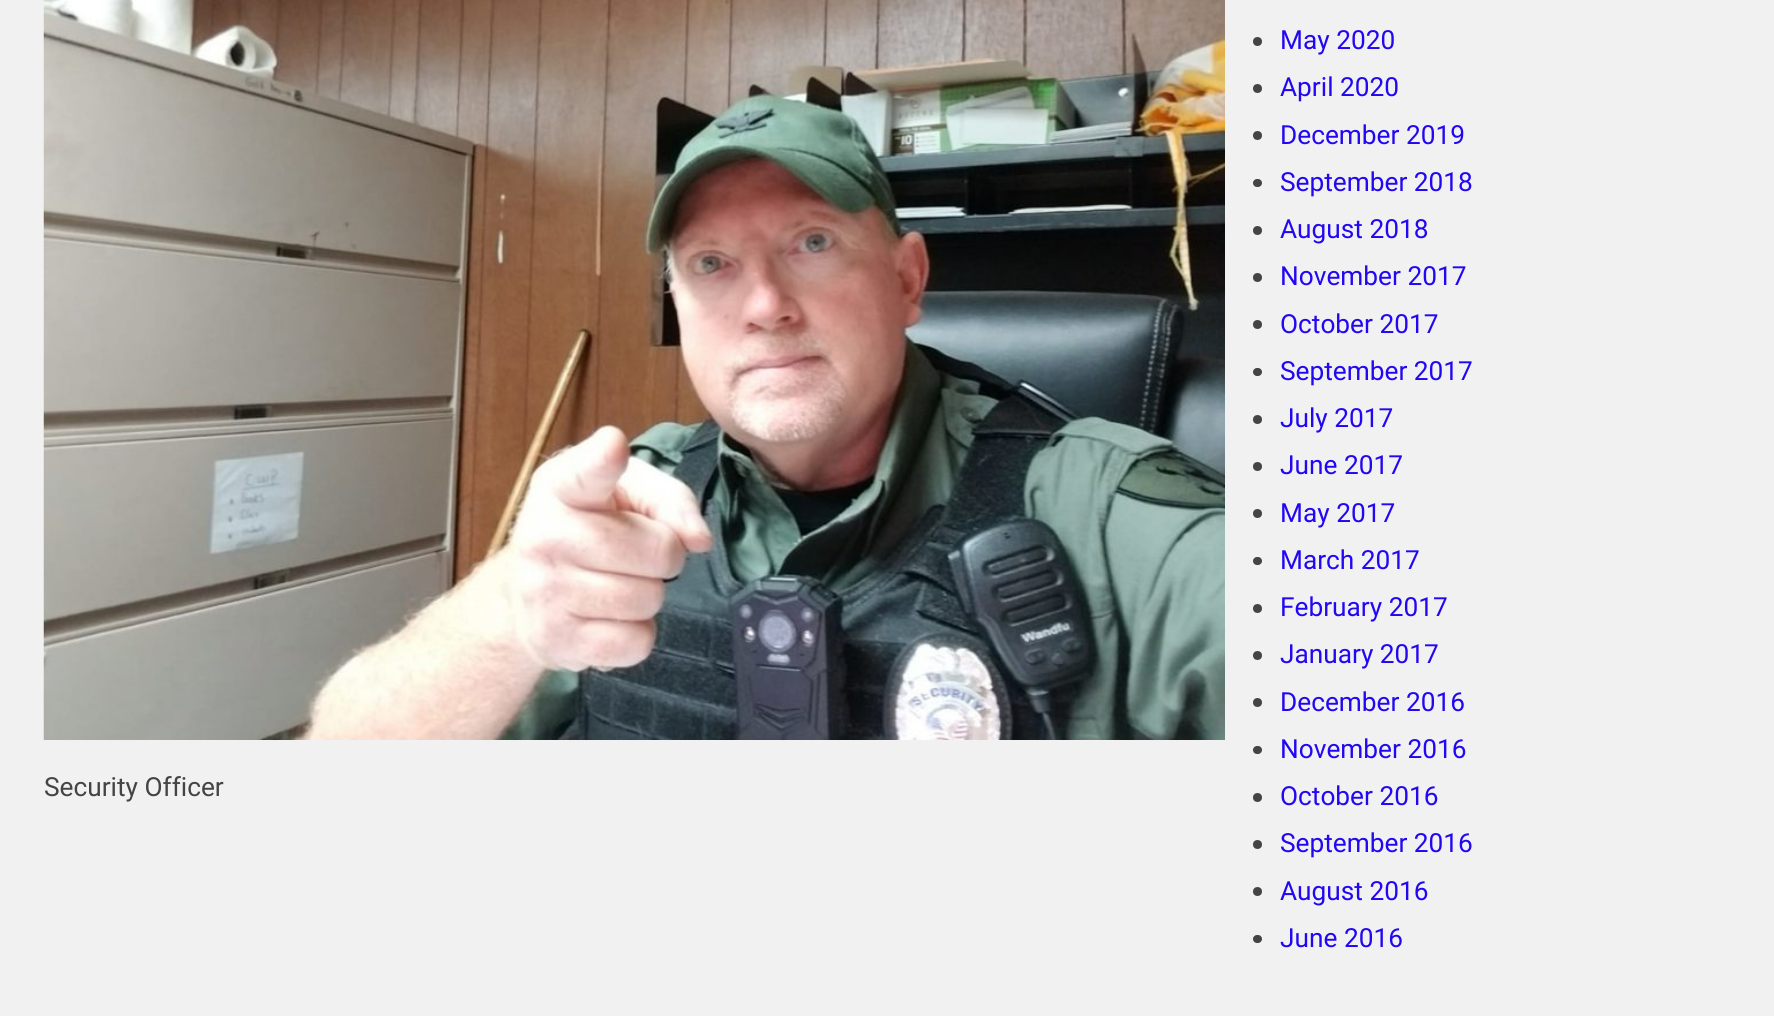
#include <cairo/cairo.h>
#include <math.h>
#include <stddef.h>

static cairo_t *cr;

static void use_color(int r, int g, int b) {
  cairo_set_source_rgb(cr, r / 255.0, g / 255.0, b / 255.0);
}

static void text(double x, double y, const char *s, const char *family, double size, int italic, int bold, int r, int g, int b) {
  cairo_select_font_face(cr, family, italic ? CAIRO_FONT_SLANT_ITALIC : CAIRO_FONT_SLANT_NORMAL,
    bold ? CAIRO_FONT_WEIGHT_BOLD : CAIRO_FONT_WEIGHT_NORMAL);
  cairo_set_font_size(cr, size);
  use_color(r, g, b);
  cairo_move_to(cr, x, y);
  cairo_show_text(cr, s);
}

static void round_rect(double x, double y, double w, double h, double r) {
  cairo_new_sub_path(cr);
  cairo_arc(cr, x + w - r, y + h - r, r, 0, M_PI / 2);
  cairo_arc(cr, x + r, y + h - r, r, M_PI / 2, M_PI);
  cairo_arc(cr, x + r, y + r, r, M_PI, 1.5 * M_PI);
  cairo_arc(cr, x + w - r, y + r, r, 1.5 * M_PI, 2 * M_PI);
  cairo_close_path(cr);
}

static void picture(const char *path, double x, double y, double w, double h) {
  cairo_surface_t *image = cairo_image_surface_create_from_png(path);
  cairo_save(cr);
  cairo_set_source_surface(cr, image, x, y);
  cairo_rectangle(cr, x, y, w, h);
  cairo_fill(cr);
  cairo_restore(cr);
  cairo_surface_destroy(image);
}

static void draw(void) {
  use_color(241, 241, 241);
  cairo_paint(cr);
  picture("img_01.png", 43, 0, 1182, 740);
  use_color(68, 68, 68);
  cairo_arc(cr, 1257.5, 41.5, 4.5, 0, 2 * M_PI);
  cairo_fill(cr);
  cairo_arc(cr, 1257.5, 88.5, 4.5, 0, 2 * M_PI);
  cairo_fill(cr);
  cairo_arc(cr, 1257.5, 135.5, 4.5, 0, 2 * M_PI);
  cairo_fill(cr);
  round_rect(1253, 179, 9, 8, 4);
  cairo_fill(cr);
  cairo_arc(cr, 1257.5, 230.5, 4.5, 0, 2 * M_PI);
  cairo_fill(cr);
  cairo_arc(cr, 1257.5, 277.5, 4.5, 0, 2 * M_PI);
  cairo_fill(cr);
  cairo_arc(cr, 1257.5, 324.5, 4.5, 0, 2 * M_PI);
  cairo_fill(cr);
  round_rect(1253, 368, 9, 8, 4);
  cairo_fill(cr);
  cairo_arc(cr, 1257.5, 419.5, 4.5, 0, 2 * M_PI);
  cairo_fill(cr);
  cairo_arc(cr, 1257.5, 466.5, 4.5, 0, 2 * M_PI);
  cairo_fill(cr);
  cairo_arc(cr, 1257.5, 513.5, 4.5, 0, 2 * M_PI);
  cairo_fill(cr);
  round_rect(1253, 557, 9, 8, 4);
  cairo_fill(cr);
  cairo_arc(cr, 1257.5, 608.5, 4.5, 0, 2 * M_PI);
  cairo_fill(cr);
  cairo_arc(cr, 1257.5, 655.5, 4.5, 0, 2 * M_PI);
  cairo_fill(cr);
  cairo_arc(cr, 1257.5, 702.5, 4.5, 0, 2 * M_PI);
  cairo_fill(cr);
  round_rect(1253, 746, 9, 8, 4);
  cairo_fill(cr);
  cairo_arc(cr, 1257.5, 797.5, 4.5, 0, 2 * M_PI);
  cairo_fill(cr);
  cairo_arc(cr, 1257.5, 844.5, 4.5, 0, 2 * M_PI);
  cairo_fill(cr);
  cairo_arc(cr, 1257.5, 891.5, 4.5, 0, 2 * M_PI);
  cairo_fill(cr);
  round_rect(1253, 935, 9, 8, 4);
  cairo_fill(cr);
  text(44, 796, "Security Officer", "Roboto", 26.25, 0, 0, 68, 68, 68);
  text(1280, 49, "May 2020", "Roboto", 26.25, 0, 0, 34, 7, 242);
  text(1280, 96, "April 2020", "Roboto", 26.25, 0, 0, 34, 7, 242);
  text(1280, 144, "December 2019", "Roboto", 26.25, 0, 0, 34, 7, 242);
  text(1280, 191, "September 2018", "Roboto", 26.25, 0, 0, 34, 7, 242);
  text(1280, 238, "August 2018", "Roboto", 26.25, 0, 0, 34, 7, 242);
  text(1280, 285, "November 2017", "Roboto", 26.25, 0, 0, 34, 7, 242);
  text(1280, 333, "October 2017", "Roboto", 26.25, 0, 0, 34, 7, 242);
  text(1280, 380, "September 2017", "Roboto", 26.25, 0, 0, 34, 7, 242);
  text(1280, 427, "July 2017", "Roboto", 26.25, 0, 0, 34, 7, 242);
  text(1280, 474, "June 2017", "Roboto", 26.25, 0, 0, 34, 7, 242);
  text(1280, 522, "May 2017", "Roboto", 26.25, 0, 0, 34, 7, 242);
  text(1280, 569, "March 2017", "Roboto", 26.25, 0, 0, 34, 7, 242);
  text(1280, 616, "February 2017", "Roboto", 26.25, 0, 0, 34, 7, 242);
  text(1280, 663, "January 2017", "Roboto", 26.25, 0, 0, 34, 7, 242);
  text(1280, 711, "December 2016", "Roboto", 26.25, 0, 0, 34, 7, 242);
  text(1280, 758, "November 2016", "Roboto", 26.25, 0, 0, 34, 7, 242);
  text(1280, 805, "October 2016", "Roboto", 26.25, 0, 0, 34, 7, 242);
  text(1280, 852, "September 2016", "Roboto", 26.25, 0, 0, 34, 7, 242);
  text(1280, 900, "August 2016", "Roboto", 26.25, 0, 0, 34, 7, 242);
  text(1280, 947, "June 2016", "Roboto", 26.25, 0, 0, 34, 7, 242);
}

int main(void) {
  cairo_surface_t *surface = cairo_image_surface_create(CAIRO_FORMAT_RGB24, 1774, 1016);
  cr = cairo_create(surface);
  cairo_font_options_t *options = cairo_font_options_create();
  cairo_font_options_set_hint_metrics(options, CAIRO_HINT_METRICS_OFF);
  cairo_font_options_set_hint_style(options, CAIRO_HINT_STYLE_NONE);
  cairo_set_font_options(cr, options);
  cairo_set_miter_limit(cr, 4);
  draw();
  cairo_surface_write_to_png(surface, "out.png");
  cairo_font_options_destroy(options);
  cairo_destroy(cr);
  cairo_surface_destroy(surface);
  return 0;
}
